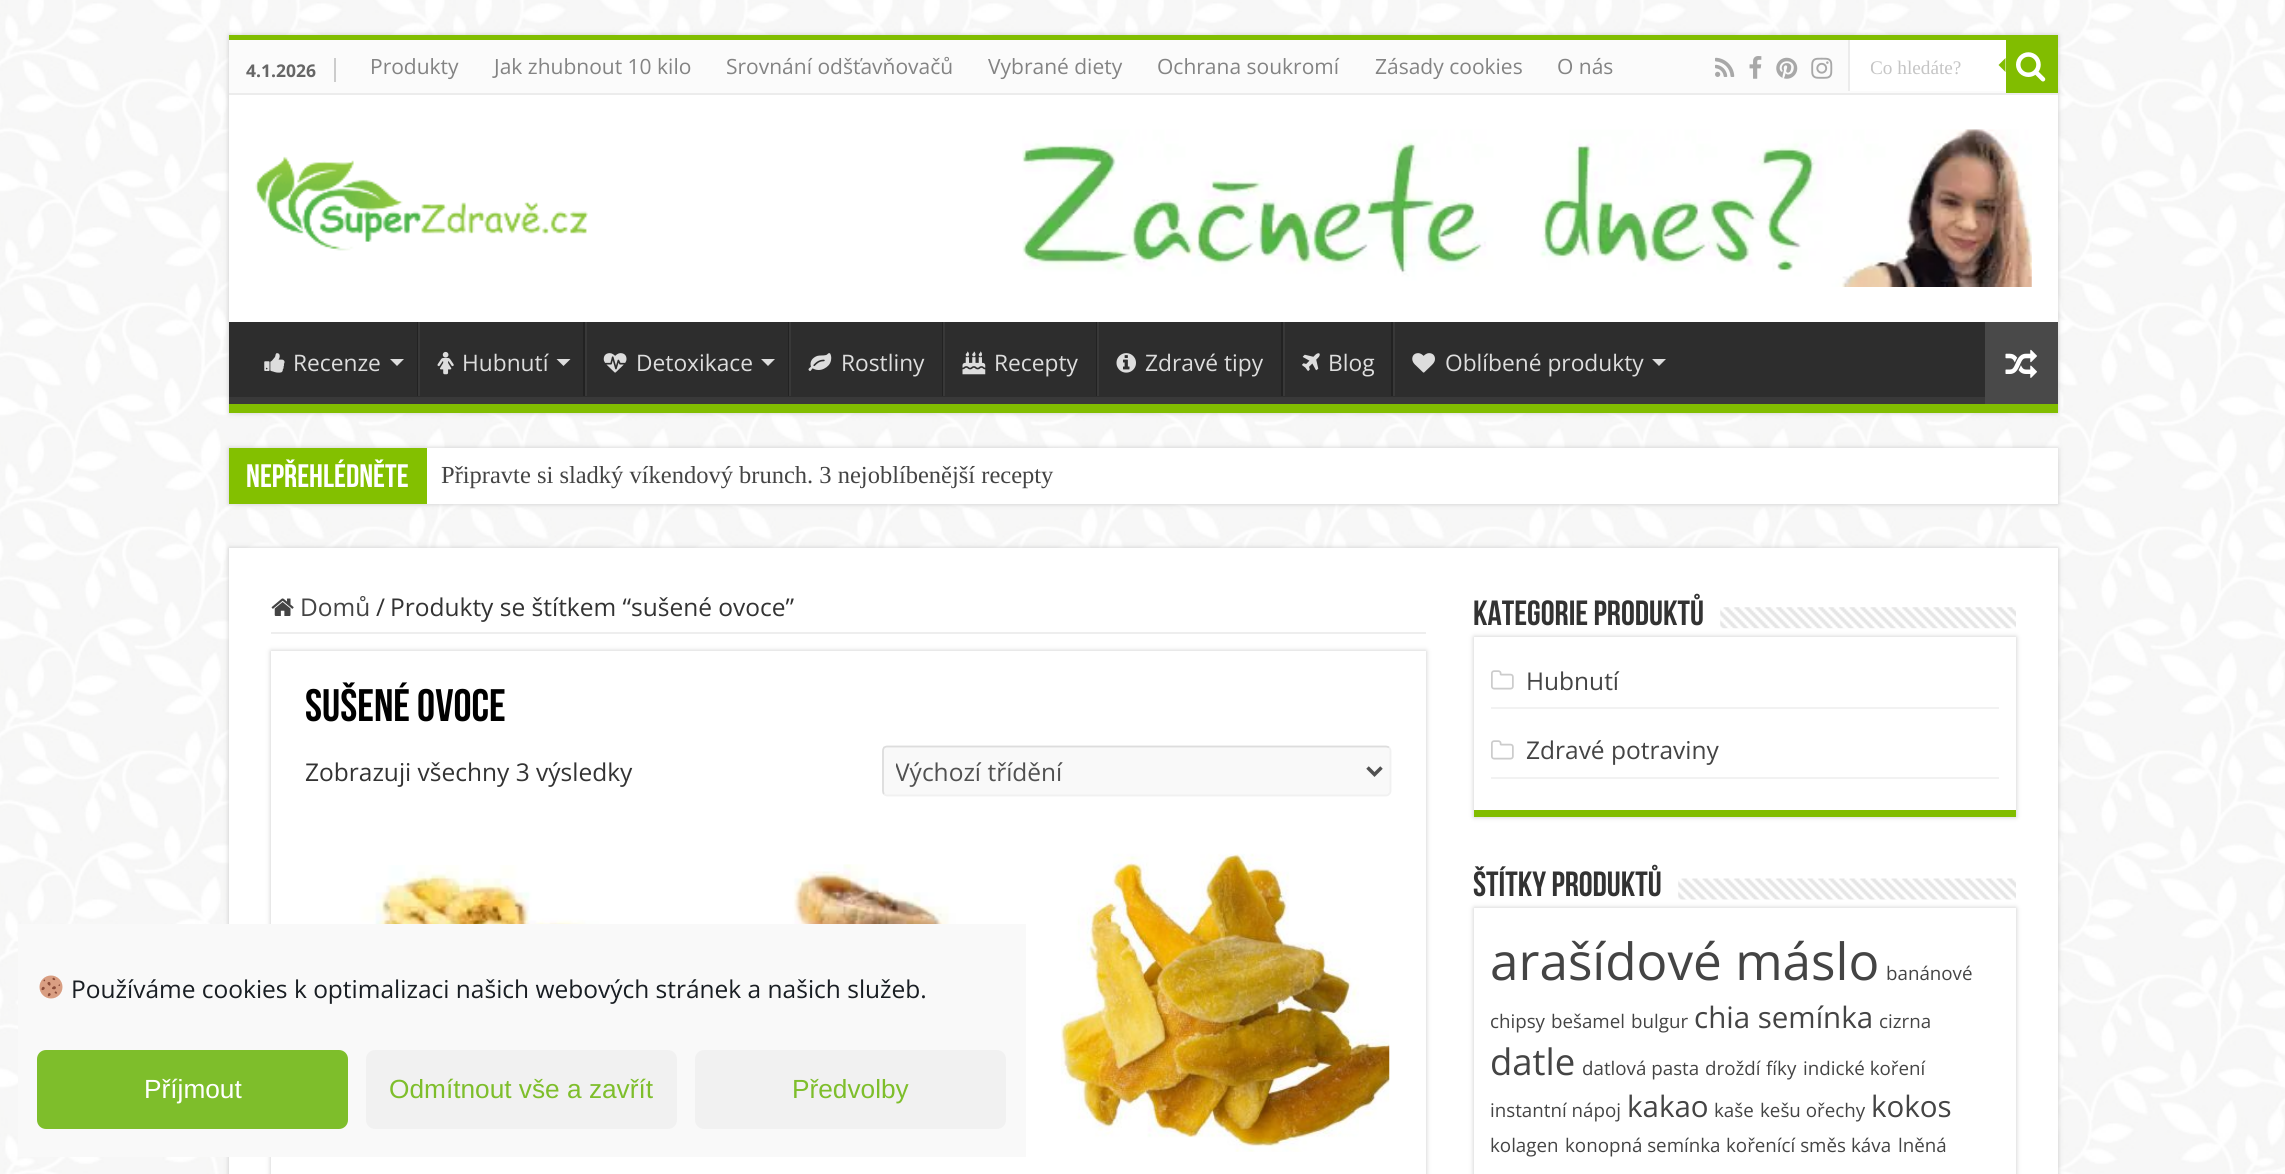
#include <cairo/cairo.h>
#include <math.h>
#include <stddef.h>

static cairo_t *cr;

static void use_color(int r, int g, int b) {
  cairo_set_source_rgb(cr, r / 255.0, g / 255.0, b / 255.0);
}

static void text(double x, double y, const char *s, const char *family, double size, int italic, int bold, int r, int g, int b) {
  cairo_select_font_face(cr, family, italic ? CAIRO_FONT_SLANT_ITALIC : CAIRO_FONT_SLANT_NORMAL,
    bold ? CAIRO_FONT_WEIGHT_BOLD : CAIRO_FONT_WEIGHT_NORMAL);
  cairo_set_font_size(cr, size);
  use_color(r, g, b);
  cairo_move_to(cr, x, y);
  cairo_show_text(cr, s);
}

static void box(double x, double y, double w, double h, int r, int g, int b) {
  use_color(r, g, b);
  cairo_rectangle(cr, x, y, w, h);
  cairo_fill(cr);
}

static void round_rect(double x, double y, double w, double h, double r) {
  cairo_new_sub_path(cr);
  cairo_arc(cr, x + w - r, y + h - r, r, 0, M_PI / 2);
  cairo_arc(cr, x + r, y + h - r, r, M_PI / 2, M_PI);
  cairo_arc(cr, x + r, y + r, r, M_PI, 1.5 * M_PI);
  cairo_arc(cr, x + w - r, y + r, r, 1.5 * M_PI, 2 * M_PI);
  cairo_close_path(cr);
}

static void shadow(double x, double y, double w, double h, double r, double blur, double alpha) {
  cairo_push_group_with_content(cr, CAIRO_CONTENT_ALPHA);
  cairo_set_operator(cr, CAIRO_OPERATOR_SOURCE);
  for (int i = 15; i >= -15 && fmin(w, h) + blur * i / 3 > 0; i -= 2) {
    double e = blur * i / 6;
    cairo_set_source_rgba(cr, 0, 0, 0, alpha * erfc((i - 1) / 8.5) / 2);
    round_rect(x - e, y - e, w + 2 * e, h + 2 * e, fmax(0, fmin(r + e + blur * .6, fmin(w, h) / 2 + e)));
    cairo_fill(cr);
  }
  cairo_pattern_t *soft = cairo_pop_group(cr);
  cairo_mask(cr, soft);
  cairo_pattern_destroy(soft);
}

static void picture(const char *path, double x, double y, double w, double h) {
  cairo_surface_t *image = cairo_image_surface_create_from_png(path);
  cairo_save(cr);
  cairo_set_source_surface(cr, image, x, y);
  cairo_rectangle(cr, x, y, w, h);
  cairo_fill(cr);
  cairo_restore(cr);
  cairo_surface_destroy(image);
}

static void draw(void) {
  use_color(255, 255, 255);
  cairo_paint(cr);
  picture("img_01.png", 0, 0, 2285, 1174);
  use_color(202, 202, 202);
  shadow(229, 35, 1829, 378, 0, 2.5, 1);
  box(229, 95, 1829, 227, 255, 255, 255);
  box(229, 35, 1829, 5, 129, 189, 0);
  box(229, 40, 1777, 53, 251, 251, 251);
  box(229, 93, 1829, 2, 236, 236, 236);
  box(334, 58, 2, 24, 204, 204, 204);
  picture("img_02.png", 1715, 57, 20, 20);
  picture("img_03.png", 1749, 56, 13, 23);
  picture("img_04.png", 1776, 57, 22, 22);
  picture("img_05.png", 1811, 57, 22, 22);
  box(1850, 40, 156, 51, 255, 255, 255);
  box(1848, 40, 2, 51, 236, 236, 236);
  box(2006, 40, 52, 53, 129, 189, 0);
  picture("img_06.png", 2016, 52, 30, 30);
  cairo_new_path(cr);
  cairo_move_to(cr, 2005.5, 58);
  cairo_line_to(cr, 2005.5, 72);
  cairo_line_to(cr, 1998.5, 65);
  cairo_close_path(cr);
  cairo_fill(cr);
  picture("img_07.png", 255, 156, 333, 95);
  picture("img_08.png", 1022, 129, 1010, 158);
  box(229, 322, 1756, 75, 45, 45, 45);
  cairo_save(cr);
  cairo_rectangle(cr, 229, 322, 1829, 82);
  cairo_clip(cr);
  use_color(57, 57, 57);
  cairo_set_fill_rule(cr, CAIRO_FILL_RULE_EVEN_ODD);
  cairo_new_path(cr);
  cairo_move_to(cr, 56, 149);
  cairo_line_to(cr, 2231, 149);
  cairo_line_to(cr, 2231, 578);
  cairo_line_to(cr, 56, 578);
  cairo_close_path(cr);
  cairo_move_to(cr, 228, 312);
  cairo_line_to(cr, 2056, 312);
  cairo_curve_to(cr, 2057, 312, 2058, 312, 2058, 313);
  cairo_line_to(cr, 2058, 396);
  cairo_curve_to(cr, 2058, 396, 2057, 397, 2056, 397);
  cairo_line_to(cr, 228, 397);
  cairo_curve_to(cr, 227, 397, 226, 396, 226, 396);
  cairo_line_to(cr, 226, 313);
  cairo_curve_to(cr, 226, 312, 227, 312, 228, 312);
  cairo_close_path(cr);
  cairo_fill(cr);
  cairo_restore(cr);
  box(229, 404, 1829, 9, 129, 189, 0);
  picture("img_09.png", 264, 353, 21, 20);
  use_color(221, 221, 221);
  cairo_new_path(cr);
  cairo_move_to(cr, 390, 359);
  cairo_line_to(cr, 404, 359);
  cairo_line_to(cr, 397, 366);
  cairo_close_path(cr);
  cairo_fill(cr);
  box(417, 322, 1, 74, 34, 34, 34);
  box(418, 322, 2, 74, 56, 56, 56);
  picture("img_10.png", 437, 351, 17, 24);
  use_color(221, 221, 221);
  cairo_new_path(cr);
  cairo_move_to(cr, 556.5, 359);
  cairo_line_to(cr, 570.5, 359);
  cairo_line_to(cr, 563.5, 366);
  cairo_close_path(cr);
  cairo_fill(cr);
  box(583, 322, 2, 74, 34, 34, 34);
  box(585, 322, 2, 74, 56, 56, 56);
  picture("img_11.png", 603, 353, 24, 20);
  use_color(221, 221, 221);
  cairo_new_path(cr);
  cairo_move_to(cr, 761, 359);
  cairo_line_to(cr, 775, 359);
  cairo_line_to(cr, 768, 366);
  cairo_close_path(cr);
  cairo_fill(cr);
  box(788, 322, 1, 74, 34, 34, 34);
  box(789, 322, 2, 74, 56, 56, 56);
  picture("img_12.png", 808, 353, 24, 18);
  box(942, 322, 1, 74, 34, 34, 34);
  box(943, 322, 2, 74, 56, 56, 56);
  picture("img_13.png", 962, 351, 24, 24);
  box(1096, 322, 1, 74, 34, 34, 34);
  box(1097, 322, 2, 74, 56, 56, 56);
  picture("img_14.png", 1116, 353, 20, 20);
  box(1281, 322, 2, 74, 34, 34, 34);
  box(1283, 322, 2, 74, 56, 56, 56);
  picture("img_15.png", 1302, 353, 18, 18);
  box(1391, 322, 2, 74, 34, 34, 34);
  box(1393, 322, 2, 74, 56, 56, 56);
  picture("img_16.png", 1412, 353, 23, 20);
  use_color(221, 221, 221);
  cairo_new_path(cr);
  cairo_move_to(cr, 1652, 359);
  cairo_line_to(cr, 1666, 359);
  cairo_line_to(cr, 1659, 366);
  cairo_close_path(cr);
  cairo_fill(cr);
  box(1985, 322, 73, 82, 73, 73, 73);
  picture("img_17.png", 2005, 349, 32, 29);
  use_color(202, 202, 202);
  shadow(229, 448, 1829, 56, 0, 2.5, 1);
  box(427, 448, 1631, 56, 255, 255, 255);
  box(229, 448, 198, 56, 131, 192, 0);
  use_color(202, 202, 202);
  shadow(229, 548, 1829, 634, 0, 2.5, 1);
  box(229, 548, 1829, 626, 255, 255, 255);
  box(271, 632, 1155, 2, 238, 238, 238);
  picture("img_18.png", 271, 598, 23, 18);
  use_color(202, 202, 202);
  shadow(271, 651, 1155, 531, 0, 2.5, 1);
  box(271, 651, 1155, 523, 255, 255, 255);
  use_color(249, 249, 249);
  round_rect(882, 746, 509, 50, 5);
  cairo_fill(cr);
  cairo_new_path(cr);
  cairo_move_to(cr, 1389, 747.5);
  cairo_curve_to(cr, 1390, 748.5, 1390.5, 749.5, 1390.5, 751);
  cairo_line_to(cr, 1390.5, 791);
  cairo_curve_to(cr, 1390.5, 792, 1390, 793.5, 1389, 794);
  cairo_curve_to(cr, 1388.5, 795, 1387, 795.5, 1386, 795.5);
  cairo_line_to(cr, 887, 795.5);
  cairo_curve_to(cr, 886, 795.5, 885, 795, 884, 794);
  use_color(241, 241, 241);
  cairo_set_line_width(cr, 1.8);
  cairo_stroke(cr);
  cairo_new_path(cr);
  cairo_move_to(cr, 884, 794);
  cairo_curve_to(cr, 883.5, 793.5, 883, 792, 883, 791);
  cairo_line_to(cr, 883, 751);
  cairo_curve_to(cr, 883, 749.5, 883.5, 748.5, 884, 747.5);
  cairo_curve_to(cr, 885, 747, 886, 746.5, 887, 746.5);
  cairo_line_to(cr, 1386, 746.5);
  cairo_curve_to(cr, 1387, 746.5, 1388.5, 747, 1389, 747.5);
  use_color(221, 221, 221);
  cairo_stroke(cr);
  cairo_new_path(cr);
  cairo_move_to(cr, 1367.5, 767.5);
  cairo_line_to(cr, 1374.5, 774.5);
  cairo_line_to(cr, 1381.5, 767.5);
  use_color(81, 81, 81);
  cairo_set_line_width(cr, 3.5);
  cairo_stroke(cr);
  picture("img_19.png", 333, 865, 281, 59);
  picture("img_20.png", 711, 864, 286, 60);
  picture("img_21.png", 1060, 853, 330, 299);
  cairo_save(cr);
  cairo_set_fill_rule(cr, CAIRO_FILL_RULE_EVEN_ODD);
  cairo_new_path(cr);
  cairo_move_to(cr, 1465, 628);
  cairo_line_to(cr, 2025, 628);
  cairo_line_to(cr, 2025, 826);
  cairo_line_to(cr, 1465, 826);
  cairo_close_path(cr);
  cairo_move_to(cr, 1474, 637);
  cairo_line_to(cr, 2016, 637);
  cairo_line_to(cr, 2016, 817);
  cairo_line_to(cr, 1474, 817);
  cairo_close_path(cr);
  cairo_clip(cr);
  use_color(202, 202, 202);
  shadow(1474, 637, 542, 180, 0, 2.5, 1);
  cairo_restore(cr);
  picture("img_22.png", 1720, 607, 296, 22);
  box(1474, 810, 542, 7, 129, 189, 0);
  box(1491, 707, 508, 2, 242, 242, 242);
  picture("img_23.png", 1491, 670, 23, 20);
  box(1491, 777, 508, 2, 242, 242, 242);
  picture("img_23.png", 1491, 740, 23, 20);
  use_color(202, 202, 202);
  shadow(1474, 908, 542, 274, 0, 2.5, 1);
  picture("img_24.png", 1678, 878, 338, 22);
  box(1474, 908, 542, 266, 255, 255, 255);
  box(18, 924, 1008, 233, 249, 249, 249);
  picture("img_25.png", 39, 975, 24, 24);
  use_color(126, 190, 43);
  round_rect(38, 1051, 309, 77, 8);
  cairo_fill_preserve(cr);
  cairo_set_line_width(cr, 2);
  cairo_stroke(cr);
  use_color(241, 241, 241);
  round_rect(366, 1050, 311, 79, 9);
  cairo_fill(cr);
  round_rect(695, 1050, 311, 79, 9);
  cairo_fill(cr);
  text(246, 77, "4.1.2026", "Open Sans", 17.5, 0, 1, 102, 102, 102);
  text(370, 74, "Produkty", "Open Sans", 21, 0, 0, 131, 131, 131);
  text(494, 74, "Jak zhubnout 10 kilo", "Open Sans", 21, 0, 0, 131, 131, 131);
  text(726, 74, "Srovnání odšťavňovačů", "Open Sans", 21, 0, 0, 131, 131, 131);
  text(988, 74, "Vybrané diety", "Open Sans", 21, 0, 0, 131, 131, 131);
  text(1157, 74, "Ochrana soukromí", "Open Sans", 21, 0, 0, 131, 131, 131);
  text(1375, 74, "Zásady cookies", "Open Sans", 21, 0, 0, 131, 131, 131);
  text(1557, 74, "O nás", "Open Sans", 21, 0, 0, 131, 131, 131);
  cairo_save(cr);
  cairo_rectangle(cr, 1871, 56, 114, 21);
  cairo_clip(cr);
  text(1870, 74, "Co hledáte?", "Liberation Serif", 19.25, 0, 0, 197, 197, 197);
  cairo_restore(cr);
  text(293, 371, "Recenze", "Open Sans", 22.75, 0, 0, 221, 221, 221);
  text(462, 371, "Hubnutí", "Open Sans", 22.75, 0, 0, 221, 221, 221);
  text(636, 371, "Detoxikace", "Open Sans", 22.75, 0, 0, 221, 221, 221);
  text(841, 371, "Rostliny", "Open Sans", 22.75, 0, 0, 221, 221, 221);
  text(994, 371, "Recepty", "Open Sans", 22.75, 0, 0, 221, 221, 221);
  text(1145, 371, "Zdravé tipy", "Open Sans", 22.75, 0, 0, 221, 221, 221);
  text(1328, 371, "Blog", "Open Sans", 22.75, 0, 0, 221, 221, 221);
  text(1445, 371, "Oblíbené produkty", "Open Sans", 22.75, 0, 0, 221, 221, 221);
  text(246, 487, "Nepřehlédněte", "Bebas Neue", 32.5, 0, 1, 255, 255, 255);
  text(441, 483, "Připravte si sladký víkendový brunch. 3 nejoblíbenější recepty", "Liberation Serif", 24.5, 0, 0, 68, 68, 68);
  text(300, 616, "Domů", "Open Sans", 24.5, 0, 0, 68, 68, 68);
  text(376, 616, "/", "Open Sans", 24.5, 0, 0, 51, 51, 51);
  text(390, 616, "Produkty se štítkem “sušené ovoce”", "Open Sans", 24.5, 0, 0, 51, 51, 51);
  text(305, 721, "sušené ovoce", "Bebas Neue", 45.5, 0, 1, 0, 0, 0);
  text(305, 781, "Zobrazuji všechny 3 výsledky", "Open Sans", 24.5, 0, 0, 51, 51, 51);
  cairo_save(cr);
  cairo_rectangle(cr, 896, 753, 460, 36);
  cairo_clip(cr);
  text(895, 781, "Výchozí třídění", "Open Sans", 24.5, 0, 0, 81, 81, 81);
  cairo_restore(cr);
  text(1473, 625, "Kategorie produktů", "Bebas Neue", 35, 0, 1, 51, 51, 51);
  text(1526, 690, "Hubnutí", "Open Sans", 24.5, 0, 0, 68, 68, 68);
  text(1526, 759, "Zdravé potraviny", "Open Sans", 24.5, 0, 0, 68, 68, 68);
  text(1473, 896, "Štítky produktů", "Bebas Neue", 35, 0, 1, 51, 51, 51);
  text(1490, 980, "arašídové máslo", "Open Sans", 51.25, 0, 0, 68, 68, 68);
  text(1886, 980, "banánové", "Open Sans", 18.75, 0, 0, 68, 68, 68);
  text(1490, 1028, "chipsy", "Open Sans", 18.75, 0, 0, 68, 68, 68);
  text(1551, 1028, "bešamel", "Open Sans", 18.75, 0, 0, 68, 68, 68);
  text(1631, 1028, "bulgur", "Open Sans", 18.75, 0, 0, 68, 68, 68);
  text(1694, 1028, "chia semínka", "Open Sans", 29.5, 0, 0, 68, 68, 68);
  text(1879, 1028, "cizrna", "Open Sans", 18.75, 0, 0, 68, 68, 68);
  text(1490, 1075, "datle", "Open Sans", 36.5, 0, 0, 68, 68, 68);
  text(1582, 1075, "datlová pasta", "Open Sans", 18.75, 0, 0, 68, 68, 68);
  text(1705, 1075, "droždí", "Open Sans", 18.75, 0, 0, 68, 68, 68);
  text(1766, 1075, "fíky", "Open Sans", 18.75, 0, 0, 68, 68, 68);
  text(1803, 1075, "indické koření", "Open Sans", 18.75, 0, 0, 68, 68, 68);
  text(1490, 1117, "instantní nápoj", "Open Sans", 18.75, 0, 0, 68, 68, 68);
  text(1627, 1117, "kakao", "Open Sans", 29.5, 0, 0, 68, 68, 68);
  text(1714, 1117, "kaše", "Open Sans", 18.75, 0, 0, 68, 68, 68);
  text(1760, 1117, "kešu ořechy", "Open Sans", 18.75, 0, 0, 68, 68, 68);
  text(1871, 1117, "kokos", "Open Sans", 29.5, 0, 0, 68, 68, 68);
  text(1490, 1152, "kolagen", "Open Sans", 18.75, 0, 0, 68, 68, 68);
  text(1565, 1152, "konopná semínka", "Open Sans", 18.75, 0, 0, 68, 68, 68);
  text(1726, 1152, "kořenící směs", "Open Sans", 18.75, 0, 0, 68, 68, 68);
  text(1851, 1152, "káva", "Open Sans", 18.75, 0, 0, 68, 68, 68);
  text(1898, 1152, "lněná", "Open Sans", 18.75, 0, 0, 68, 68, 68);
  text(71, 998, "Používáme cookies k optimalizaci našich webových stránek a našich služeb.", "Open Sans", 24.5, 0, 0, 25, 30, 35);
  text(144, 1098, "Příjmout", "Liberation Sans", 26.25, 0, 0, 255, 255, 255);
  text(389, 1098, "Odmítnout vše a zavřít", "Liberation Sans", 26.25, 0, 0, 126, 190, 43);
  text(792, 1098, "Předvolby", "Liberation Sans", 26.25, 0, 0, 126, 190, 43);
}

int main(void) {
  cairo_surface_t *surface = cairo_image_surface_create(CAIRO_FORMAT_RGB24, 2285, 1174);
  cr = cairo_create(surface);
  cairo_font_options_t *options = cairo_font_options_create();
  cairo_font_options_set_hint_metrics(options, CAIRO_HINT_METRICS_OFF);
  cairo_font_options_set_hint_style(options, CAIRO_HINT_STYLE_NONE);
  cairo_set_font_options(cr, options);
  cairo_set_miter_limit(cr, 4);
  draw();
  cairo_surface_write_to_png(surface, "out.png");
  cairo_font_options_destroy(options);
  cairo_destroy(cr);
  cairo_surface_destroy(surface);
  return 0;
}
